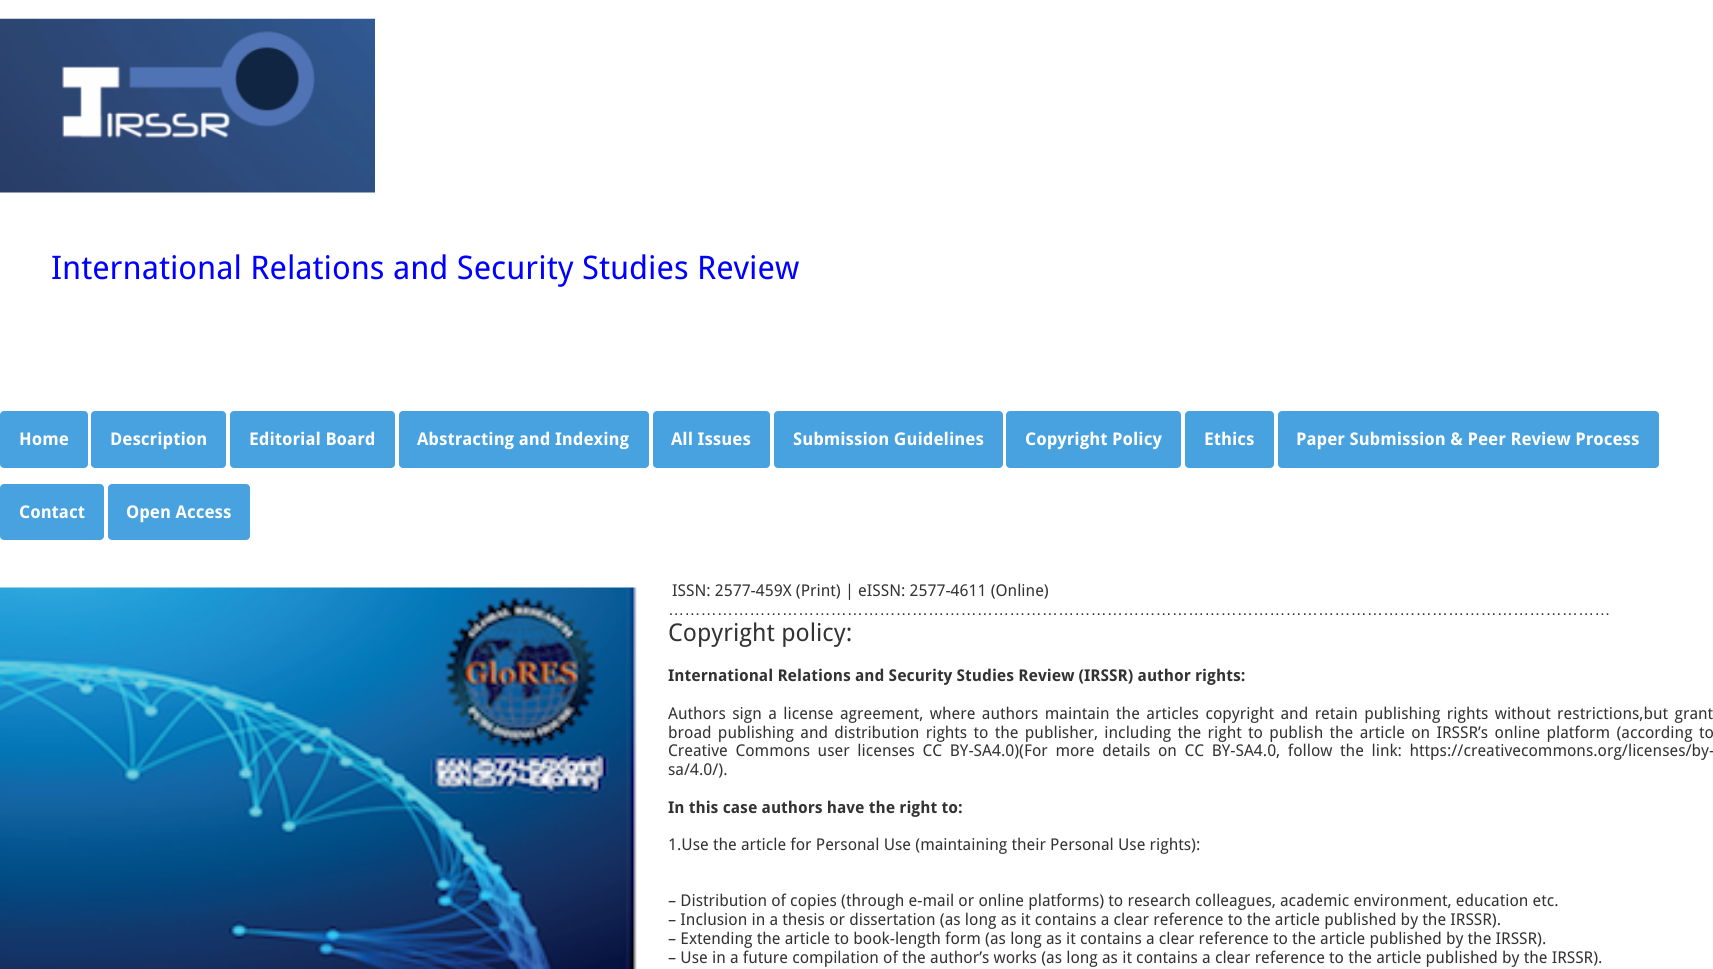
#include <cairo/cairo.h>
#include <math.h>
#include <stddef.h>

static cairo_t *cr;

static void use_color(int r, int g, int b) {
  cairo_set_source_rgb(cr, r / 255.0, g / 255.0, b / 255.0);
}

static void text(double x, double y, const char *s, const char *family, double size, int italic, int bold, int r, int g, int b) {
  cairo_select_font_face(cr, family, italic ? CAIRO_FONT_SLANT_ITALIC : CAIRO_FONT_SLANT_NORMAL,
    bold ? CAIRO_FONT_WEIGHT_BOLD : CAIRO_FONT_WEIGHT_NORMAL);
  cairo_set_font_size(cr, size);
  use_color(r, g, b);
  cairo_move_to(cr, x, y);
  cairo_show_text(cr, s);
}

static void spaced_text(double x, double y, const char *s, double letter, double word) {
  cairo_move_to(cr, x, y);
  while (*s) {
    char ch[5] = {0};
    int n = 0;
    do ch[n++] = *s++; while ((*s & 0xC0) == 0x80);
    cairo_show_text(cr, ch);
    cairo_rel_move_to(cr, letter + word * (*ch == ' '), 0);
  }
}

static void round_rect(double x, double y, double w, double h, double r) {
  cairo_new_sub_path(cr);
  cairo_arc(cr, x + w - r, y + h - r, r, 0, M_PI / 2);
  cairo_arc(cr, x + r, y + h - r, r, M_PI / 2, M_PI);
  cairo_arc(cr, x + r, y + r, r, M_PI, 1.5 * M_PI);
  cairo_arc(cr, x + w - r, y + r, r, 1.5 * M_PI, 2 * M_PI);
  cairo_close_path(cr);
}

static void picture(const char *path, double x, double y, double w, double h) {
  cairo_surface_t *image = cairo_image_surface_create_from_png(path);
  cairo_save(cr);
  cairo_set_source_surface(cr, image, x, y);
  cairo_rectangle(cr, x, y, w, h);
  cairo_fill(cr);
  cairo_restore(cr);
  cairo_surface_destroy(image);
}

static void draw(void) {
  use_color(255, 255, 255);
  cairo_paint(cr);
  picture("img_01.png", 0, 18, 375, 175);
  use_color(72, 162, 223);
  round_rect(0, 411, 88, 57, 4);
  cairo_fill(cr);
  round_rect(91, 411, 135, 57, 4);
  cairo_fill(cr);
  round_rect(230, 411, 165, 57, 4);
  cairo_fill(cr);
  round_rect(399, 411, 250, 57, 4);
  cairo_fill(cr);
  round_rect(653, 411, 117, 57, 4);
  cairo_fill(cr);
  round_rect(774, 411, 229, 57, 4);
  cairo_fill(cr);
  round_rect(1006, 411, 175, 57, 4);
  cairo_fill(cr);
  round_rect(1185, 411, 89, 57, 4);
  cairo_fill(cr);
  round_rect(1278, 411, 381, 57, 4);
  cairo_fill(cr);
  round_rect(0, 484, 104, 56, 4);
  cairo_fill(cr);
  round_rect(108, 484, 142, 56, 4);
  cairo_fill(cr);
  picture("img_02.png", 0, 587, 637, 382);
  text(51, 279, "International Relations and Security Studies Review", "Droid Sans", 32.5, 0, 0, 0, 0, 255);
  text(19, 445, "Home", "Droid Sans", 17.5, 0, 1, 255, 255, 255);
  text(110, 445, "Description", "Droid Sans", 17.5, 0, 1, 255, 255, 255);
  text(249, 445, "Editorial Board", "Droid Sans", 17.5, 0, 1, 255, 255, 255);
  text(417, 445, "Abstracting and Indexing", "Droid Sans", 17.5, 0, 1, 255, 255, 255);
  text(671, 445, "All Issues", "Droid Sans", 17.5, 0, 1, 255, 255, 255);
  text(793, 445, "Submission Guidelines", "Droid Sans", 17.5, 0, 1, 255, 255, 255);
  text(1025, 445, "Copyright Policy", "Droid Sans", 17.5, 0, 1, 255, 255, 255);
  text(1204, 445, "Ethics", "Droid Sans", 17.5, 0, 1, 255, 255, 255);
  text(1296, 445, "Paper Submission & Peer Review Process", "Droid Sans", 17.5, 0, 1, 255, 255, 255);
  text(19, 518, "Contact", "Droid Sans", 17.5, 0, 1, 255, 255, 255);
  text(126, 518, "Open Access", "Droid Sans", 17.5, 0, 1, 255, 255, 255);
  text(672, 596, "ISSN: 2577-459X (Print) | eISSN: 2577-4611 (Online)", "Droid Sans", 16.25, 0, 0, 51, 51, 51);
  text(668, 615, "…………………………………………………………………………………………………………………………………………………………", "Liberation Sans", 16.25, 0, 0, 51, 51, 51);
  text(668, 641, "Copyright policy:", "Droid Sans", 24.5, 0, 0, 51, 51, 51);
  text(668, 681, "International Relations and Security Studies Review (IRSSR) author rights:", "Droid Sans", 16.25, 0, 1, 51, 51, 51);
  cairo_select_font_face(cr, "Droid Sans", CAIRO_FONT_SLANT_NORMAL, CAIRO_FONT_WEIGHT_NORMAL);
  spaced_text(668, 719, "Authors sign a license agreement, where authors maintain the articles copyright and retain publishing rights without restrictions,but grant", 0, 2.25);
  spaced_text(668, 738, "broad publishing and distribution rights to the publisher, including the right to publish the article on IRSSR’s online platform (according to", 0, 2.1);
  spaced_text(668, 756, "Creative Commons user licenses CC BY-SA4.0)(For more details on CC BY-SA4.0, follow the link: https://creativecommons.org/licenses/by-", 0, 3.4);
  text(668, 775, "sa/4.0/).", "Droid Sans", 16.25, 0, 0, 51, 51, 51);
  text(668, 813, "In this case authors have the right to:", "Droid Sans", 16.25, 0, 1, 51, 51, 51);
  text(668, 850, "1.Use the article for Personal Use (maintaining their Personal Use rights):", "Droid Sans", 16.25, 0, 0, 51, 51, 51);
  text(668, 906, "– Distribution of copies (through e-mail or online platforms) to research colleagues, academic environment, education etc.", "Droid Sans", 16.25, 0, 0, 51, 51, 51);
  text(668, 925, "– Inclusion in a thesis or dissertation (as long as it contains a clear reference to the article published by the IRSSR).", "Droid Sans", 16.25, 0, 0, 51, 51, 51);
  text(668, 944, "– Extending the article to book-length form (as long as it contains a clear reference to the article published by the IRSSR).", "Droid Sans", 16.25, 0, 0, 51, 51, 51);
  text(668, 963, "– Use in a future compilation of the author’s works (as long as it contains a clear reference to the article published by the IRSSR).", "Droid Sans", 16.25, 0, 0, 51, 51, 51);
}

int main(void) {
  cairo_surface_t *surface = cairo_image_surface_create(CAIRO_FORMAT_RGB24, 1713, 969);
  cr = cairo_create(surface);
  cairo_font_options_t *options = cairo_font_options_create();
  cairo_font_options_set_hint_metrics(options, CAIRO_HINT_METRICS_OFF);
  cairo_font_options_set_hint_style(options, CAIRO_HINT_STYLE_NONE);
  cairo_set_font_options(cr, options);
  cairo_set_miter_limit(cr, 4);
  draw();
  cairo_surface_write_to_png(surface, "out.png");
  cairo_font_options_destroy(options);
  cairo_destroy(cr);
  cairo_surface_destroy(surface);
  return 0;
}
